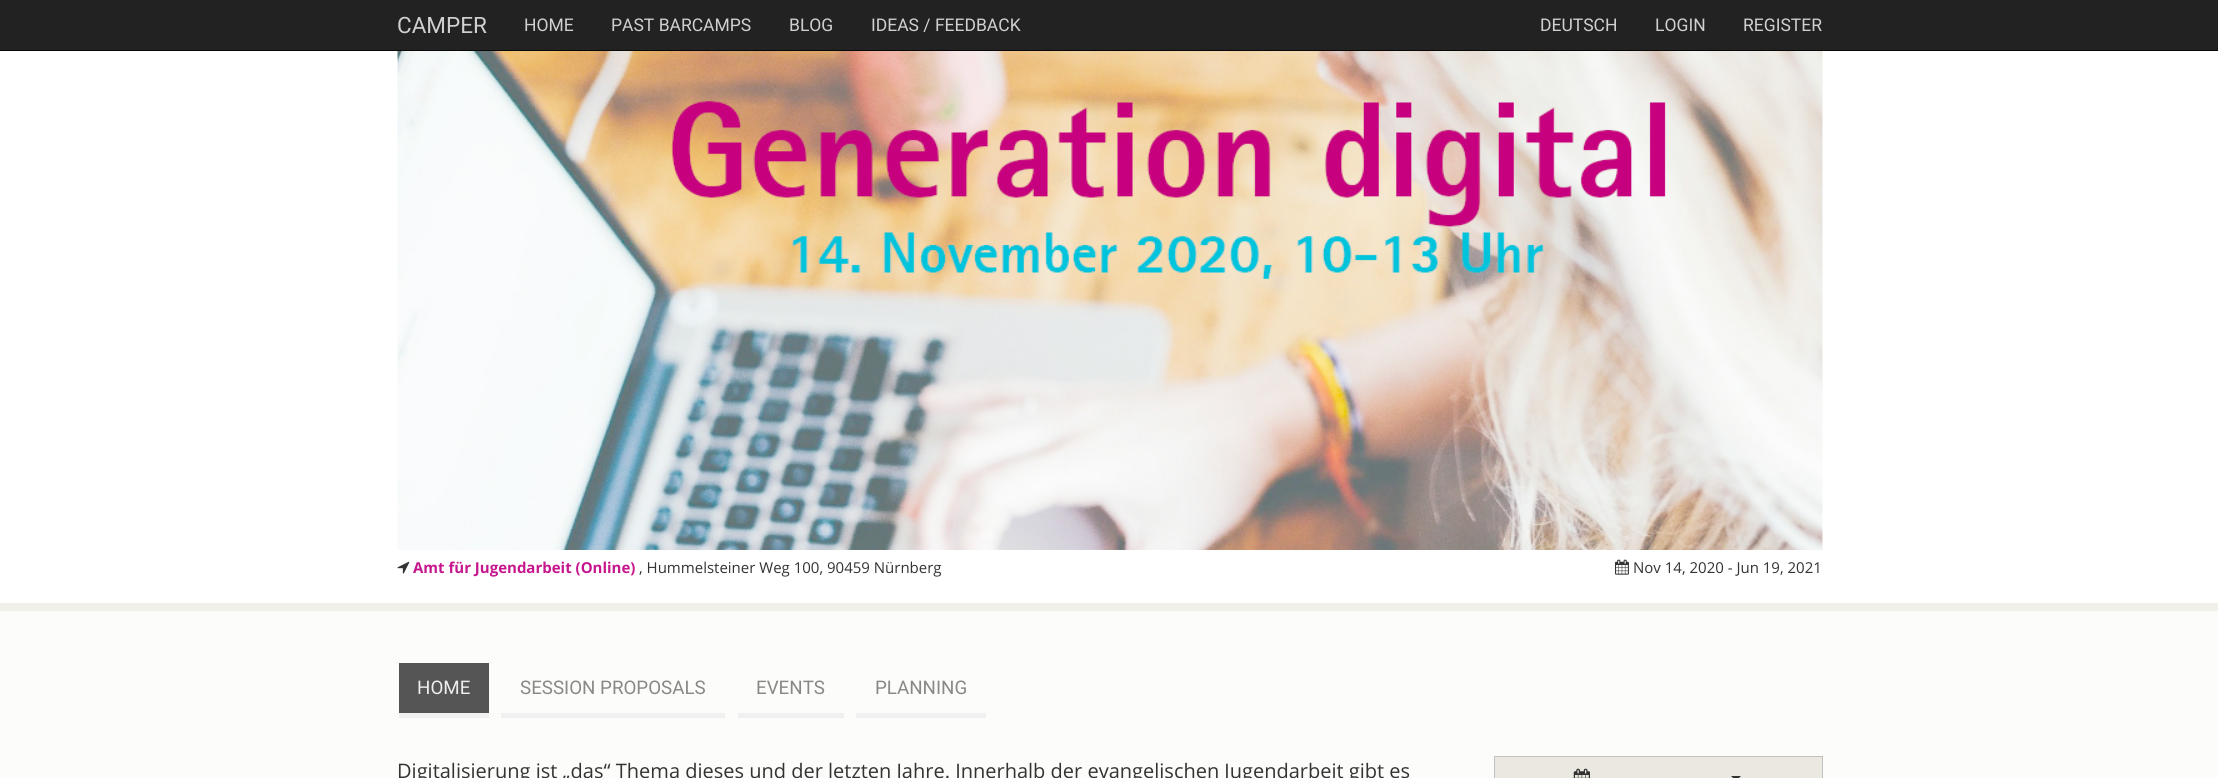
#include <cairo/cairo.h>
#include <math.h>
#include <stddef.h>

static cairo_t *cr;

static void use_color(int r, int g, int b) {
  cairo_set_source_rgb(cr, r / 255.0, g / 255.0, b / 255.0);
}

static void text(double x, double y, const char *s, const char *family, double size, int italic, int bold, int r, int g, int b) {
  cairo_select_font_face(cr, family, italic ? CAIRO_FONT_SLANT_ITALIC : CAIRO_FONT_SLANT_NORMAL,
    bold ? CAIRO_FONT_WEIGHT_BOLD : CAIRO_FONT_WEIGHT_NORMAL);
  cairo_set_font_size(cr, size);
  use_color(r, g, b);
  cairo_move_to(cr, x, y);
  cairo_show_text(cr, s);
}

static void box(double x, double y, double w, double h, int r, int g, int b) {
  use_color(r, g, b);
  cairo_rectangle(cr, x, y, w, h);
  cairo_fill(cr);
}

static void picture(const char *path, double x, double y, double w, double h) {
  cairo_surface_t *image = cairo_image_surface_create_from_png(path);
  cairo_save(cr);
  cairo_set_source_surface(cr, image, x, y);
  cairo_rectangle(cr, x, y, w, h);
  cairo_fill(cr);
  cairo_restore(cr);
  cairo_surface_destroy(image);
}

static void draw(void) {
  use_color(252, 252, 250);
  cairo_paint(cr);
  box(0, 0, 2218, 50, 34, 34, 34);
  box(0, 50, 2218, 1, 8, 8, 8);
  box(0, 51, 2218, 552, 255, 255, 255);
  box(0, 603, 2218, 8, 240, 240, 232);
  picture("img_01.png", 397, 51, 1426, 499);
  picture("img_02.png", 397, 561, 13, 13);
  picture("img_03.png", 1615, 559, 14, 16);
  box(399, 663, 90, 50, 85, 85, 85);
  box(399, 713, 90, 5, 240, 240, 240);
  box(501, 713, 224, 5, 240, 240, 240);
  box(738, 713, 106, 5, 240, 240, 240);
  box(856, 713, 130, 5, 240, 240, 240);
  use_color(234, 232, 224);
  cairo_rectangle(cr, 1494.5, 756.5, 328, 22);
  cairo_fill_preserve(cr);
  use_color(192, 192, 192);
  cairo_set_line_width(cr, 1);
  cairo_stroke(cr);
  picture("img_04.png", 1573, 768, 17, 10);
  use_color(51, 51, 51);
  cairo_new_path(cr);
  cairo_move_to(cr, 1731, 776);
  cairo_line_to(cr, 1741, 776);
  cairo_line_to(cr, 1736, 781);
  cairo_close_path(cr);
  cairo_fill(cr);
  text(397, 33, "CAMPER", "Roboto", 22.5, 0, 0, 208, 208, 208);
  text(524, 31, "HOME", "Roboto", 17.5, 0, 0, 208, 208, 208);
  text(611, 31, "PAST BARCAMPS", "Roboto", 17.5, 0, 0, 208, 208, 208);
  text(789, 31, "BLOG", "Roboto", 17.5, 0, 0, 208, 208, 208);
  text(871, 31, "IDEAS / FEEDBACK", "Roboto", 17.5, 0, 0, 208, 208, 208);
  text(1540, 31, "DEUTSCH", "Roboto", 17.5, 0, 0, 208, 208, 208);
  text(1655, 31, "LOGIN", "Roboto", 17.5, 0, 0, 208, 208, 208);
  text(1743, 31, "REGISTER", "Roboto", 17.5, 0, 0, 208, 208, 208);
  text(413, 573, "Amt für Jugendarbeit (Online)", "Open Sans", 15, 0, 1, 198, 22, 141);
  text(639, 573, ", Hummelsteiner Weg 100, 90459 Nürnberg", "Open Sans", 15, 0, 0, 51, 51, 51);
  text(1633, 573, "Nov 14, 2020 - Jun 19, 2021", "Open Sans", 15, 0, 0, 51, 51, 51);
  text(417, 694, "HOME", "Roboto", 18.75, 0, 0, 238, 238, 238);
  text(520, 694, "SESSION PROPOSALS", "Roboto", 18.75, 0, 0, 136, 136, 136);
  text(756, 694, "EVENTS", "Roboto", 18.75, 0, 0, 136, 136, 136);
  text(875, 694, "PLANNING", "Roboto", 18.75, 0, 0, 136, 136, 136);
  text(397, 778, "Digitalisierung ist „das“ Thema dieses und der letzten Jahre. Innerhalb der evangelischen Jugendarbeit gibt es", "Open Sans", 20, 0, 0, 51, 51, 51);
}

int main(void) {
  cairo_surface_t *surface = cairo_image_surface_create(CAIRO_FORMAT_RGB24, 2218, 778);
  cr = cairo_create(surface);
  cairo_font_options_t *options = cairo_font_options_create();
  cairo_font_options_set_hint_metrics(options, CAIRO_HINT_METRICS_OFF);
  cairo_font_options_set_hint_style(options, CAIRO_HINT_STYLE_NONE);
  cairo_set_font_options(cr, options);
  cairo_set_miter_limit(cr, 4);
  draw();
  cairo_surface_write_to_png(surface, "out.png");
  cairo_font_options_destroy(options);
  cairo_destroy(cr);
  cairo_surface_destroy(surface);
  return 0;
}
